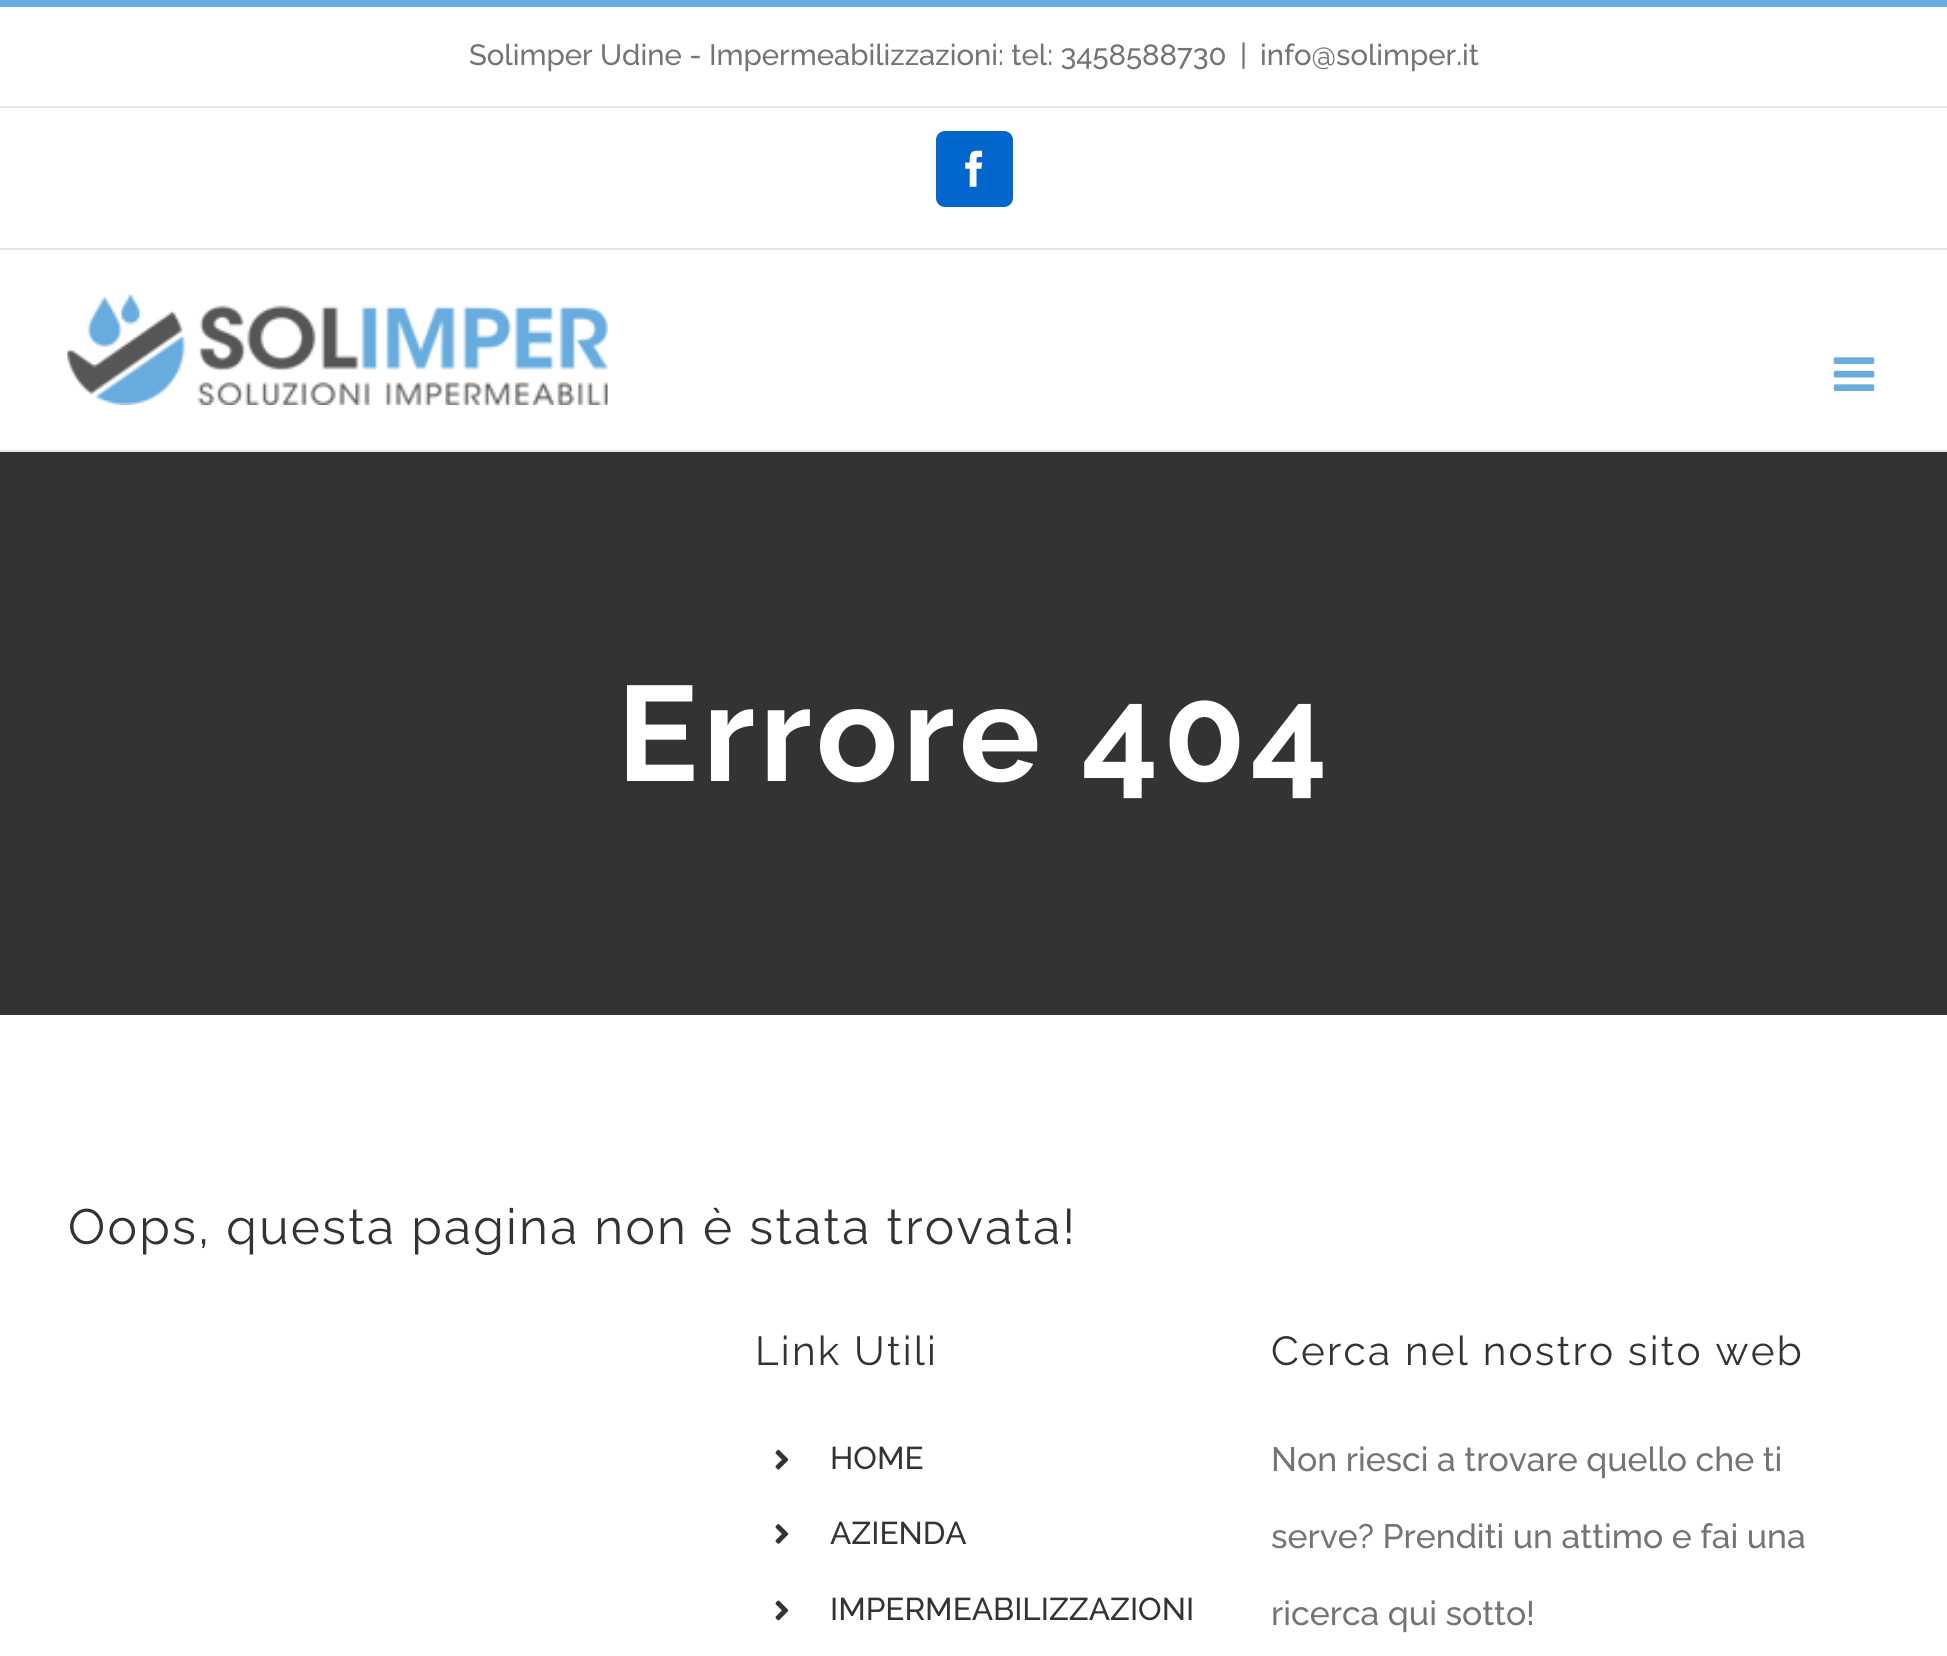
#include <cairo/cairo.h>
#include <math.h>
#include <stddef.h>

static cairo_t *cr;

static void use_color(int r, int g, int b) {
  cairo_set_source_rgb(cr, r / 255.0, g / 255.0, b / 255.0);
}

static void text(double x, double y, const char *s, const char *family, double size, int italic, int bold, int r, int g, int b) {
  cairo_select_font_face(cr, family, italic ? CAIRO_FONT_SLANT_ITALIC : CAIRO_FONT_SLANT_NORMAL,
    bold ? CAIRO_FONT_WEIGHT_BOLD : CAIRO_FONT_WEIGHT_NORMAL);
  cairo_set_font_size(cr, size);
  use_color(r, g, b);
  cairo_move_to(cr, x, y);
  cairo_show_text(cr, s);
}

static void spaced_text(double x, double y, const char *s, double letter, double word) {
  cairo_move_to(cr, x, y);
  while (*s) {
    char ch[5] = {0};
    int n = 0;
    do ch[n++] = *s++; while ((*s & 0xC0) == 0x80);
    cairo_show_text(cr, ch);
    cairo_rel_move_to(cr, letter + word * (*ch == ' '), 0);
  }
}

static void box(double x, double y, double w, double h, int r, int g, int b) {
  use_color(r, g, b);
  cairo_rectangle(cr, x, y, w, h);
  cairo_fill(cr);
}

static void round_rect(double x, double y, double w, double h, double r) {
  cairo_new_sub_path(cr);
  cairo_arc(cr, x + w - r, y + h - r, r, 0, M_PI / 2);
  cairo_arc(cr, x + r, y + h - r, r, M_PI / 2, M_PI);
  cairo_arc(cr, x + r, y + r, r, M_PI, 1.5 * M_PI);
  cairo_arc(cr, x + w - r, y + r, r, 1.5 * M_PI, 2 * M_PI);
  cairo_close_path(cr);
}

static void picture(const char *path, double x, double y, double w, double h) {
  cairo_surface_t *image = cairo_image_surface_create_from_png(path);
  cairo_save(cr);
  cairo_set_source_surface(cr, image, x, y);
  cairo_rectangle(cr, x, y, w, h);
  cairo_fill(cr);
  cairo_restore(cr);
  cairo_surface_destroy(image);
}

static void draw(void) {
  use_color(255, 255, 255);
  cairo_paint(cr);
  box(0, 0, 1947, 7, 104, 172, 223);
  box(0, 248, 1947, 2, 229, 229, 229);
  box(0, 106, 1947, 2, 229, 229, 229);
  use_color(2, 103, 204);
  round_rect(937, 132, 75, 74, 8);
  cairo_fill_preserve(cr);
  cairo_stroke(cr);
  picture("img_01.png", 965, 150, 18, 37);
  box(0, 450, 1947, 2, 229, 229, 229);
  picture("img_02.png", 67, 294, 541, 111);
  picture("img_03.png", 1833, 357, 42, 35);
  box(0, 452, 1947, 563, 51, 51, 51);
  picture("img_04.png", 775, 1449, 14, 21);
  picture("img_05.png", 775, 1524, 14, 20);
  picture("img_06.png", 775, 1600, 14, 21);
  text(469, 65, "Solimper Udine - Impermeabilizzazioni: tel: 3458588730", "Raleway Medium", 29.25, 0, 0, 116, 116, 116);
  text(1240, 65, "|", "Raleway Medium", 29.25, 0, 0, 116, 116, 116);
  text(1260, 65, "info@solimper.it", "Raleway Medium", 29.25, 0, 0, 116, 116, 116);
  cairo_select_font_face(cr, "Raleway", CAIRO_FONT_SLANT_NORMAL, CAIRO_FONT_WEIGHT_BOLD);
  cairo_set_font_size(cr, 135);
  use_color(255, 255, 255);
  spaced_text(617, 781, "Errore 404", 4.5, 0);
  cairo_select_font_face(cr, "Raleway", CAIRO_FONT_SLANT_NORMAL, CAIRO_FONT_WEIGHT_NORMAL);
  cairo_set_font_size(cr, 49.5);
  use_color(51, 51, 51);
  spaced_text(68, 1244, "Oops, questa pagina non è stata trovata!", 2.25, 0);
  cairo_set_font_size(cr, 40.5);
  spaced_text(755, 1365, "Link Utili", 2.25, 0);
  text(830, 1469, "HOME", "Raleway Medium", 31.5, 0, 0, 51, 51, 51);
  text(830, 1544, "AZIENDA", "Raleway Medium", 31.5, 0, 0, 51, 51, 51);
  text(830, 1620, "IMPERMEABILIZZAZIONI", "Raleway Medium", 31.5, 0, 0, 51, 51, 51);
  cairo_select_font_face(cr, "Raleway", CAIRO_FONT_SLANT_NORMAL, CAIRO_FONT_WEIGHT_NORMAL);
  cairo_set_font_size(cr, 40.5);
  spaced_text(1271, 1365, "Cerca nel nostro sito web", 2.25, 0);
  text(1271, 1471, "Non riesci a trovare quello che ti", "Raleway Medium", 33.75, 0, 0, 116, 116, 116);
  text(1271, 1548, "serve? Prenditi un attimo e fai una", "Raleway Medium", 33.75, 0, 0, 116, 116, 116);
  text(1271, 1625, "ricerca qui sotto!", "Raleway Medium", 33.75, 0, 0, 116, 116, 116);
}

int main(void) {
  cairo_surface_t *surface = cairo_image_surface_create(CAIRO_FORMAT_RGB24, 1947, 1656);
  cr = cairo_create(surface);
  cairo_font_options_t *options = cairo_font_options_create();
  cairo_font_options_set_hint_metrics(options, CAIRO_HINT_METRICS_OFF);
  cairo_font_options_set_hint_style(options, CAIRO_HINT_STYLE_NONE);
  cairo_set_font_options(cr, options);
  cairo_set_miter_limit(cr, 4);
  draw();
  cairo_surface_write_to_png(surface, "out.png");
  cairo_font_options_destroy(options);
  cairo_destroy(cr);
  cairo_surface_destroy(surface);
  return 0;
}
